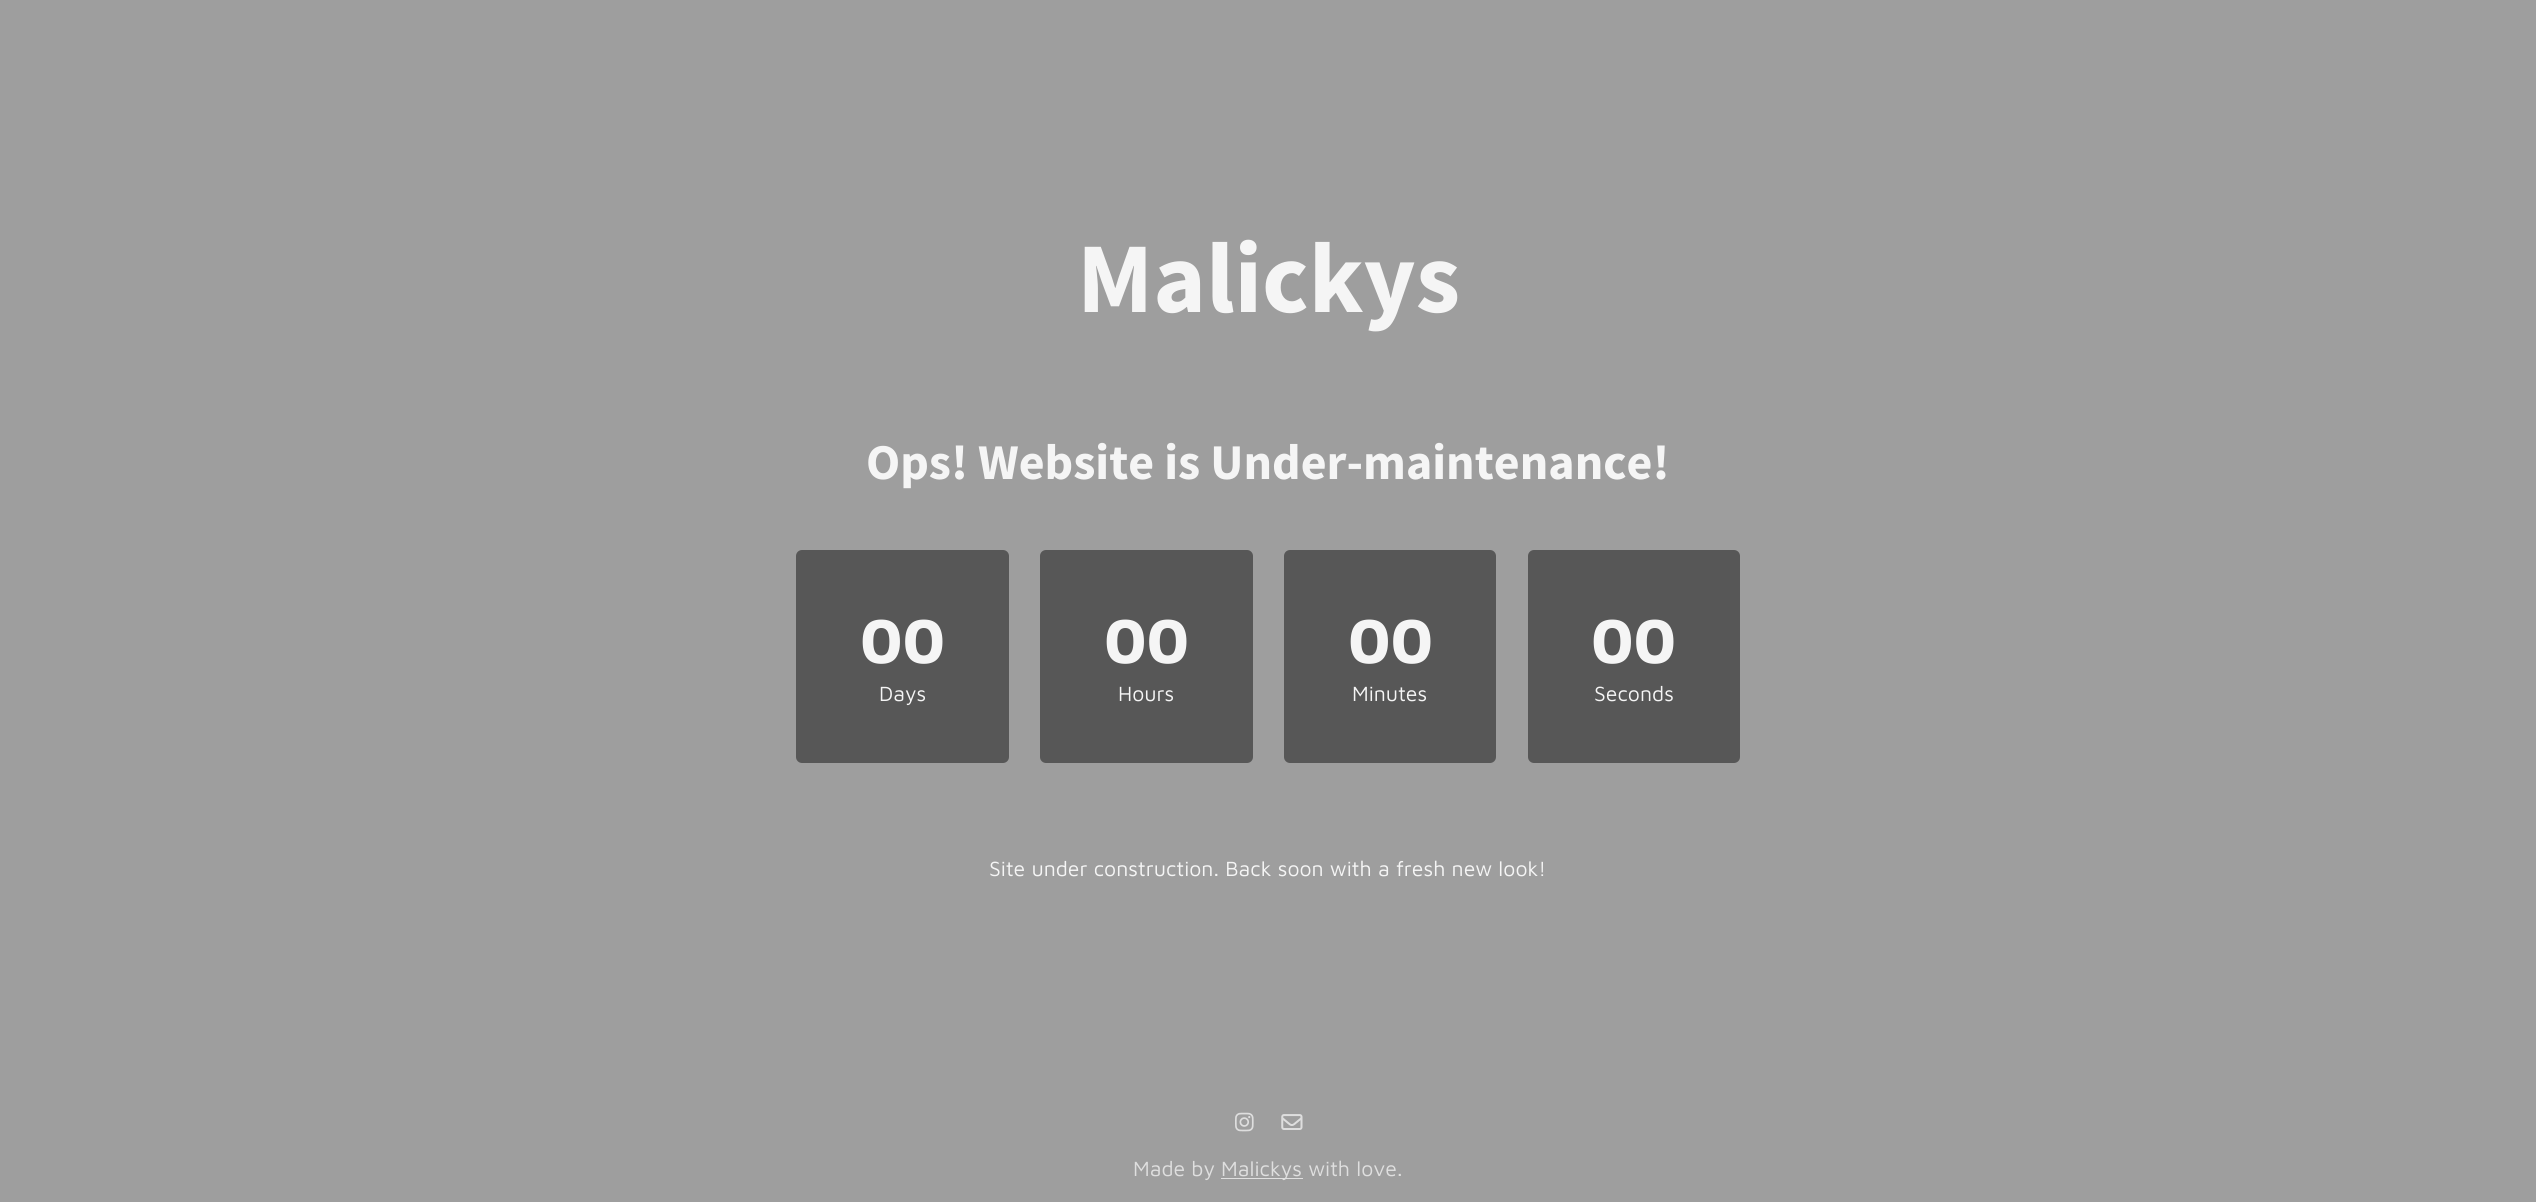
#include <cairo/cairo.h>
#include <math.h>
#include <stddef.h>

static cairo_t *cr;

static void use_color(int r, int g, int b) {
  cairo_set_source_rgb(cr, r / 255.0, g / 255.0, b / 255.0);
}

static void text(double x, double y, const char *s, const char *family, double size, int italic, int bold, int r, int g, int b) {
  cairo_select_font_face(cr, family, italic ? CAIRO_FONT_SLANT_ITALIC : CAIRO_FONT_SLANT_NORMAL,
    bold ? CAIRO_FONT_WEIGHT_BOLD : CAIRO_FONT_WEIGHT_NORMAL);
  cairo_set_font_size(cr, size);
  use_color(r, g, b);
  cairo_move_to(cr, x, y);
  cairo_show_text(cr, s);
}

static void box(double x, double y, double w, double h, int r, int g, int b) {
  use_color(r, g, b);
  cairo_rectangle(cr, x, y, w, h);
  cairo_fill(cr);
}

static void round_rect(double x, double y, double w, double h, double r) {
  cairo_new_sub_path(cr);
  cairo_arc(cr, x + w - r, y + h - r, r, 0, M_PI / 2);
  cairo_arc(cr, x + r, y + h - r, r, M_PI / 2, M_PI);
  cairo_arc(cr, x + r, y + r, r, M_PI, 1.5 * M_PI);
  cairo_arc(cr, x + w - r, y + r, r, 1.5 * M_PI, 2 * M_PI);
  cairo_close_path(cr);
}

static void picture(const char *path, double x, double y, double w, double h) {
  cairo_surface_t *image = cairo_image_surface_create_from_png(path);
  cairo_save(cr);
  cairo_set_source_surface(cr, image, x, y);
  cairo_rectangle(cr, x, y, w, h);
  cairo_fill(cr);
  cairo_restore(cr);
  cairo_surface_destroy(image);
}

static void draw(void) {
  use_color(158, 158, 158);
  cairo_paint(cr);
  use_color(87, 87, 87);
  round_rect(796, 550, 213, 213, 6);
  cairo_fill(cr);
  round_rect(1040, 550, 213, 213, 6);
  cairo_fill(cr);
  round_rect(1284, 550, 212, 213, 6);
  cairo_fill(cr);
  round_rect(1528, 550, 212, 213, 6);
  cairo_fill(cr);
  picture("img_01.png", 1235, 1112, 19, 20);
  picture("img_02.png", 1281, 1114, 22, 16);
  box(1221, 1178, 82, 1, 223, 223, 223);
  text(1077, 312, "Malickys", "Source Sans Pro", 100, 0, 1, 245, 245, 245);
  text(866, 479, "Ops! Website is Under-maintenance!", "Source Sans Pro", 50, 0, 1, 245, 245, 245);
  text(860, 663, "00", "Maven Pro", 64, 0, 1, 245, 245, 245);
  text(879, 701, "Days", "Maven Pro", 21.25, 0, 0, 245, 245, 245);
  text(1104, 663, "00", "Maven Pro", 64, 0, 1, 245, 245, 245);
  text(1118, 701, "Hours", "Maven Pro", 21.25, 0, 0, 245, 245, 245);
  text(1348, 663, "00", "Maven Pro", 64, 0, 1, 245, 245, 245);
  text(1352, 701, "Minutes", "Maven Pro", 21.25, 0, 0, 245, 245, 245);
  text(1591, 663, "00", "Maven Pro", 64, 0, 1, 245, 245, 245);
  text(1594, 701, "Seconds", "Maven Pro", 21.25, 0, 0, 245, 245, 245);
  text(989, 876, "Site under construction. Back soon with a fresh new look!", "Maven Pro", 21.25, 0, 0, 245, 245, 245);
  text(1133, 1176, "Made by", "Maven Pro", 21.25, 0, 0, 223, 223, 223);
  text(1221, 1176, "Malickys with love.", "Maven Pro", 21.25, 0, 0, 223, 223, 223);
}

int main(void) {
  cairo_surface_t *surface = cairo_image_surface_create(CAIRO_FORMAT_RGB24, 2536, 1202);
  cr = cairo_create(surface);
  cairo_font_options_t *options = cairo_font_options_create();
  cairo_font_options_set_hint_metrics(options, CAIRO_HINT_METRICS_OFF);
  cairo_font_options_set_hint_style(options, CAIRO_HINT_STYLE_NONE);
  cairo_set_font_options(cr, options);
  cairo_set_miter_limit(cr, 4);
  draw();
  cairo_surface_write_to_png(surface, "out.png");
  cairo_font_options_destroy(options);
  cairo_destroy(cr);
  cairo_surface_destroy(surface);
  return 0;
}
